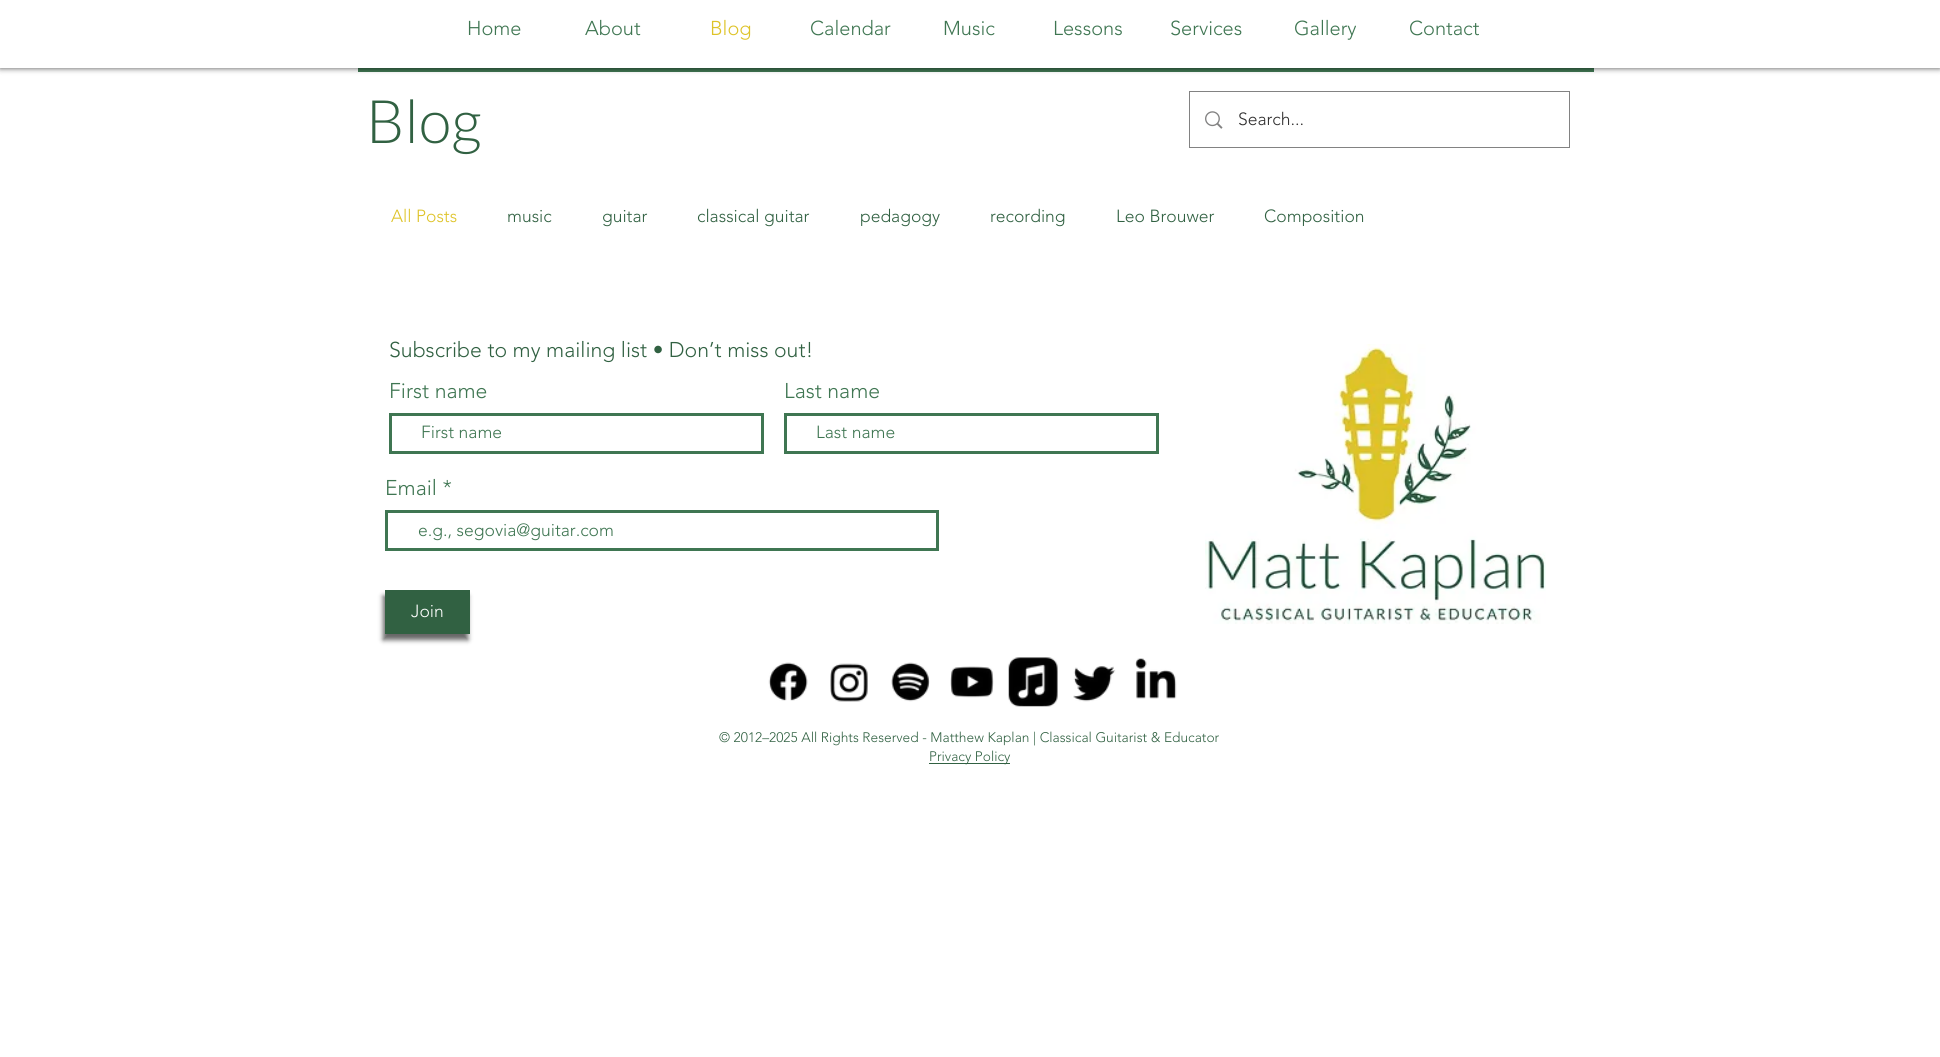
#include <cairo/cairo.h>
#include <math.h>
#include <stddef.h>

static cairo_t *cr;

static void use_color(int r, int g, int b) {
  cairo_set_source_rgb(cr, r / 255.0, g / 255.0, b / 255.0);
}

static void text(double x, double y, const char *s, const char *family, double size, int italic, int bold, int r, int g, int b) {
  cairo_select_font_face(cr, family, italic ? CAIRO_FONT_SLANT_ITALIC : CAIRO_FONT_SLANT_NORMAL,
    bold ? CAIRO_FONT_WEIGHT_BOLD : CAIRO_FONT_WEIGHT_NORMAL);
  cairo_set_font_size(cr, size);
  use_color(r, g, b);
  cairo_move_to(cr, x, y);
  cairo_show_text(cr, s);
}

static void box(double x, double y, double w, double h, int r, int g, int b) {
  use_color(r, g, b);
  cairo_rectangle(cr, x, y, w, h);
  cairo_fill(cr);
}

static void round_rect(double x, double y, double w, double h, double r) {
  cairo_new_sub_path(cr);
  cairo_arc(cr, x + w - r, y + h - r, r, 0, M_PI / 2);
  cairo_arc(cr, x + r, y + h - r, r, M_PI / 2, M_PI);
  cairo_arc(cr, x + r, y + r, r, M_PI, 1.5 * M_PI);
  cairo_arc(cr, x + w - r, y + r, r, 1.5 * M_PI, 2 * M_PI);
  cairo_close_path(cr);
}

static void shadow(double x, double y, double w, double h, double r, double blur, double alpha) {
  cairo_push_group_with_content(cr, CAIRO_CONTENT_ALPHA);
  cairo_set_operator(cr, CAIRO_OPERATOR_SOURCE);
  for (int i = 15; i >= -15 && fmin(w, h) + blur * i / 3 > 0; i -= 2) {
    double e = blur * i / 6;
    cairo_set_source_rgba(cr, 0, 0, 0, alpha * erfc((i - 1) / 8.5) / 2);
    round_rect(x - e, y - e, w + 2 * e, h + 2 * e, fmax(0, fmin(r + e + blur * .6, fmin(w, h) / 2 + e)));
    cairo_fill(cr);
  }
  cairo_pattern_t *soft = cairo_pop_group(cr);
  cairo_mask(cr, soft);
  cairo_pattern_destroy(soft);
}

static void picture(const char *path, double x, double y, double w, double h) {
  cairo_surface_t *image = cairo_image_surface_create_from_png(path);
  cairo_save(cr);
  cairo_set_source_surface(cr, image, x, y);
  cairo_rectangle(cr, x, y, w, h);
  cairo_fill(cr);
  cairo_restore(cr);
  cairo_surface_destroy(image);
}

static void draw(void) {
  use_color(255, 255, 255);
  cairo_paint(cr);
  box(358, 68, 1236, 4, 63, 118, 82);
  use_color(0, 0, 0);
  shadow(0, 0, 1940, 68, 0, 3, 0.7);
  box(0, 0, 1940, 68, 255, 255, 255);
  cairo_rectangle(cr, 1189.5, 91.5, 380, 56);
  use_color(130, 130, 130);
  cairo_set_line_width(cr, 1);
  cairo_stroke(cr);
  picture("img_01.png", 1205, 111, 18, 18);
  picture("img_02.png", 1205, 344, 341, 280);
  cairo_rectangle(cr, 390.5, 414.5, 372, 38);
  use_color(63, 118, 82);
  cairo_set_line_width(cr, 3);
  cairo_stroke(cr);
  cairo_rectangle(cr, 785.5, 414.5, 372, 38);
  cairo_stroke(cr);
  cairo_rectangle(cr, 386.5, 511.5, 551, 38);
  cairo_stroke(cr);
  use_color(0, 0, 0);
  shadow(383, 596, 85, 44, 0, 2.5, 0.6);
  box(385, 590, 85, 44, 49, 97, 66);
  picture("img_03.png", 768, 662, 40, 39);
  picture("img_04.png", 830, 663, 38, 39);
  picture("img_05.png", 891, 662, 39, 40);
  picture("img_06.png", 950, 666, 44, 32);
  picture("img_07.png", 1008, 657, 50, 50);
  picture("img_08.png", 1073, 666, 43, 36);
  picture("img_09.png", 1135, 658, 42, 41);
  box(929, 763, 81, 1, 49, 97, 66);
  text(467, 35, "Home", "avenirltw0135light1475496 Light", 20, 0, 0, 63, 118, 82);
  text(585, 35, "About", "avenirltw0135light1475496 Light", 20, 0, 0, 63, 118, 82);
  text(710, 35, "Blog", "avenirltw0135light1475496 Light", 20, 0, 0, 222, 195, 40);
  text(810, 35, "Calendar", "avenirltw0135light1475496 Light", 20, 0, 0, 63, 118, 82);
  text(943, 35, "Music", "avenirltw0135light1475496 Light", 20, 0, 0, 63, 118, 82);
  text(1053, 35, "Lessons", "avenirltw0135light1475496 Light", 20, 0, 0, 63, 118, 82);
  text(1170, 35, "Services", "avenirltw0135light1475496 Light", 20, 0, 0, 63, 118, 82);
  text(1294, 35, "Gallery", "avenirltw0135light1475496 Light", 20, 0, 0, 63, 118, 82);
  text(1409, 35, "Contact", "avenirltw0135light1475496 Light", 20, 0, 0, 63, 118, 82);
  text(366, 143, "Blog", "Lato Light", 60, 0, 0, 49, 97, 66);
  text(1238, 125, "Search...", "avenirltw0135light1475496 Light", 17.5, 0, 0, 47, 46, 46);
  text(391, 222, "All Posts", "avenirltw0135light1475496 Light", 17.5, 0, 0, 222, 195, 40);
  text(507, 222, "music", "avenirltw0135light1475496 Light", 17.5, 0, 0, 49, 97, 66);
  text(602, 222, "guitar", "avenirltw0135light1475496 Light", 17.5, 0, 0, 49, 97, 66);
  text(697, 222, "classical guitar", "avenirltw0135light1475496 Light", 17.5, 0, 0, 49, 97, 66);
  text(860, 222, "pedagogy", "avenirltw0135light1475496 Light", 17.5, 0, 0, 49, 97, 66);
  text(990, 222, "recording", "avenirltw0135light1475496 Light", 17.5, 0, 0, 49, 97, 66);
  text(1116, 222, "Leo Brouwer", "avenirltw0135light1475496 Light", 17.5, 0, 0, 49, 97, 66);
  text(1264, 222, "Composition", "avenirltw0135light1475496 Light", 17.5, 0, 0, 49, 97, 66);
  text(389, 357, "Subscribe to my mailing list • Don’t miss out!", "avenirltw0135light1475496 Light", 21.25, 0, 0, 49, 97, 66);
  text(389, 398, "First name", "avenirltw0135light1475496 Light", 21.25, 0, 0, 63, 118, 82);
  text(421, 438, "First name", "avenirltw0135light1475496 Light", 17.5, 0, 0, 63, 118, 82);
  text(784, 398, "Last name", "avenirltw0135light1475496 Light", 21.25, 0, 0, 63, 118, 82);
  text(816, 438, "Last name", "avenirltw0135light1475496 Light", 17.5, 0, 0, 63, 118, 82);
  text(385, 495, "Email *", "avenirltw0135light1475496 Light", 21.25, 0, 0, 63, 118, 82);
  text(418, 536, "e.g., segovia@guitar.com", "avenirltw0135light1475496 Light", 17.5, 0, 0, 63, 118, 82);
  text(411, 617, "Join", "avenirltw0135light1475496 Light", 17.5, 0, 0, 255, 255, 255);
  text(719, 742, "© 2012–2025 All Rights Reserved - Matthew Kaplan | Classical Guitarist & Educator", "avenirltw0135light1475496 Light", 13.75, 0, 0, 49, 97, 66);
  text(929, 761, "Privacy Policy", "avenirltw0135light1475496 Light", 13.75, 0, 0, 49, 97, 66);
}

int main(void) {
  cairo_surface_t *surface = cairo_image_surface_create(CAIRO_FORMAT_RGB24, 1940, 1057);
  cr = cairo_create(surface);
  cairo_font_options_t *options = cairo_font_options_create();
  cairo_font_options_set_hint_metrics(options, CAIRO_HINT_METRICS_OFF);
  cairo_font_options_set_hint_style(options, CAIRO_HINT_STYLE_NONE);
  cairo_set_font_options(cr, options);
  cairo_set_miter_limit(cr, 4);
  draw();
  cairo_surface_write_to_png(surface, "out.png");
  cairo_font_options_destroy(options);
  cairo_destroy(cr);
  cairo_surface_destroy(surface);
  return 0;
}
